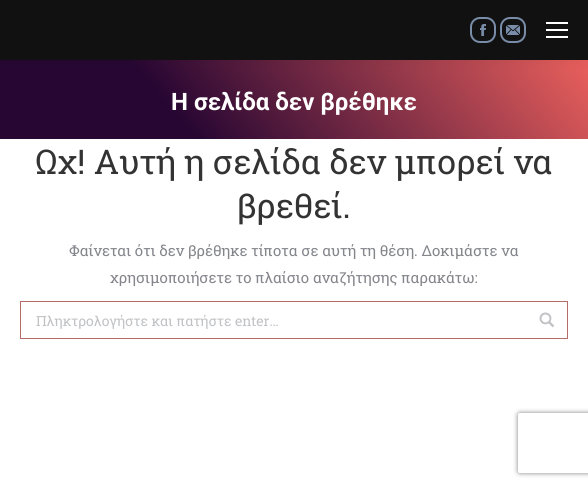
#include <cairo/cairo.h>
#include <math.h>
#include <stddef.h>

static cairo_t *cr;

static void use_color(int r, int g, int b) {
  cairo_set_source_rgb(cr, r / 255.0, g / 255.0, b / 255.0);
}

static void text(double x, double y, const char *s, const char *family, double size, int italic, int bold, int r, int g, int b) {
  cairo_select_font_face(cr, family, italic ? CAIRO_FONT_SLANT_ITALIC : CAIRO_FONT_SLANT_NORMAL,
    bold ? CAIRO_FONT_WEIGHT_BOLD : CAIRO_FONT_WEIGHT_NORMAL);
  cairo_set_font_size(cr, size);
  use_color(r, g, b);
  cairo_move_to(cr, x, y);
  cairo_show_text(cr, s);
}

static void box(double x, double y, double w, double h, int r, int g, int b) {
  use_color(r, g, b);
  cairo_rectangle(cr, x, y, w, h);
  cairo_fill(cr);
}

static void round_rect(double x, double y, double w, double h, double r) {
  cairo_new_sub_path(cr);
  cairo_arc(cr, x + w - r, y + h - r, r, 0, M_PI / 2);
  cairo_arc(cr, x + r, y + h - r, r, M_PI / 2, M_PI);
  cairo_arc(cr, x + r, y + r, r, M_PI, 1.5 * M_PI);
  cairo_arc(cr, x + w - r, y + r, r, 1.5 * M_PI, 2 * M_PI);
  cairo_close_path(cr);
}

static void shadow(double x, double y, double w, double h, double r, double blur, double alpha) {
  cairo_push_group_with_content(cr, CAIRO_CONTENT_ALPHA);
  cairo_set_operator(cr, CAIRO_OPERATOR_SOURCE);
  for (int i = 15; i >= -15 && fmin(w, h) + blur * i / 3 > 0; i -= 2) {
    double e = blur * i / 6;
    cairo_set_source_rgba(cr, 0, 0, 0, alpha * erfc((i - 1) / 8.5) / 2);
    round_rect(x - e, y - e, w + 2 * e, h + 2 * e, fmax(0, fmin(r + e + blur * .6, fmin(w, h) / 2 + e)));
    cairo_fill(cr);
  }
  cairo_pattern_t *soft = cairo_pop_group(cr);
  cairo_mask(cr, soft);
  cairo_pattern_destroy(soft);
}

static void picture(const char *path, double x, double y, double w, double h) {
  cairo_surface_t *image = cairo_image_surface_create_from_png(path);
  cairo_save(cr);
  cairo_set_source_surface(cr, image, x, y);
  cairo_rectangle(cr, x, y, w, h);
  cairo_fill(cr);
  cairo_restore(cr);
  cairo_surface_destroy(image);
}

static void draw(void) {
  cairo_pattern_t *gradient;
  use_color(255, 255, 255);
  cairo_paint(cr);
  gradient = cairo_pattern_create_linear(102, 261, 486, -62);
  cairo_pattern_add_color_stop_rgba(gradient, 0.3, 0.153, 0.024, 0.2, 1);
  cairo_pattern_add_color_stop_rgba(gradient, 1, 0.918, 0.376, 0.361, 1);
  cairo_set_source(cr, gradient);
  cairo_pattern_destroy(gradient);
  cairo_rectangle(cr, 0, 60, 588, 79);
  cairo_fill(cr);
  use_color(0, 0, 0);
  shadow(-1, -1, 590, 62, 0, 7.5, 0.07);
  box(0, 0, 588, 60, 17, 17, 17);
  round_rect(471, 18, 24, 24, 9);
  use_color(121, 140, 168);
  cairo_stroke(cr);
  picture("img_01.png", 480, 24, 6, 12);
  round_rect(501, 18, 24, 24, 9);
  cairo_stroke(cr);
  picture("img_02.png", 506, 25, 14, 10);
  box(546, 29, 22, 2, 255, 255, 255);
  box(546, 22, 22, 2, 255, 255, 255);
  box(546, 36, 22, 2, 255, 255, 255);
  cairo_rectangle(cr, 20.5, 301.5, 547, 37);
  use_color(179, 108, 104);
  cairo_set_line_width(cr, 1);
  cairo_stroke(cr);
  picture("img_03.png", 539, 312, 16, 16);
  cairo_save(cr);
  cairo_set_fill_rule(cr, CAIRO_FILL_RULE_EVEN_ODD);
  cairo_new_path(cr);
  cairo_move_to(cr, 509, 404);
  cairo_line_to(cr, 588, 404);
  cairo_line_to(cr, 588, 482);
  cairo_line_to(cr, 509, 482);
  cairo_close_path(cr);
  cairo_move_to(cr, 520, 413);
  cairo_line_to(cr, 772, 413);
  cairo_curve_to(cr, 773, 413, 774, 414, 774, 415);
  cairo_line_to(cr, 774, 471);
  cairo_curve_to(cr, 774, 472, 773, 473, 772, 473);
  cairo_line_to(cr, 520, 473);
  cairo_curve_to(cr, 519, 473, 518, 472, 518, 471);
  cairo_line_to(cr, 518, 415);
  cairo_curve_to(cr, 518, 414, 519, 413, 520, 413);
  cairo_close_path(cr);
  cairo_clip(cr);
  use_color(128, 128, 128);
  shadow(518, 413, 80, 60, 2, 2.5, 1);
  cairo_restore(cr);
  text(171, 110, "Η σελίδα δεν βρέθηκε", "Roboto", 24, 0, 1, 255, 255, 255);
  text(35, 174, "Ωχ! Αυτή η σελίδα δεν μπορεί να", "Roboto Slab", 34, 0, 0, 51, 51, 51);
  text(237, 218, "βρεθεί.", "Roboto Slab", 34, 0, 0, 51, 51, 51);
  text(69, 256, "Φαίνεται ότι δεν βρέθηκε τίποτα σε αυτή τη θέση. Δοκιμάστε να", "Roboto Slab", 15, 0, 0, 133, 134, 140);
  text(110, 283, "χρησιμοποιήσετε το πλαίσιο αναζήτησης παρακάτω:", "Roboto Slab", 15, 0, 0, 133, 134, 140);
  text(36, 326, "Πληκτρολογήστε και πατήστε enter…", "Roboto Slab", 14, 0, 0, 193, 194, 197);
}

int main(void) {
  cairo_surface_t *surface = cairo_image_surface_create(CAIRO_FORMAT_RGB24, 588, 487);
  cr = cairo_create(surface);
  cairo_font_options_t *options = cairo_font_options_create();
  cairo_font_options_set_hint_metrics(options, CAIRO_HINT_METRICS_OFF);
  cairo_font_options_set_hint_style(options, CAIRO_HINT_STYLE_NONE);
  cairo_set_font_options(cr, options);
  cairo_set_miter_limit(cr, 4);
  draw();
  cairo_surface_write_to_png(surface, "out.png");
  cairo_font_options_destroy(options);
  cairo_destroy(cr);
  cairo_surface_destroy(surface);
  return 0;
}
